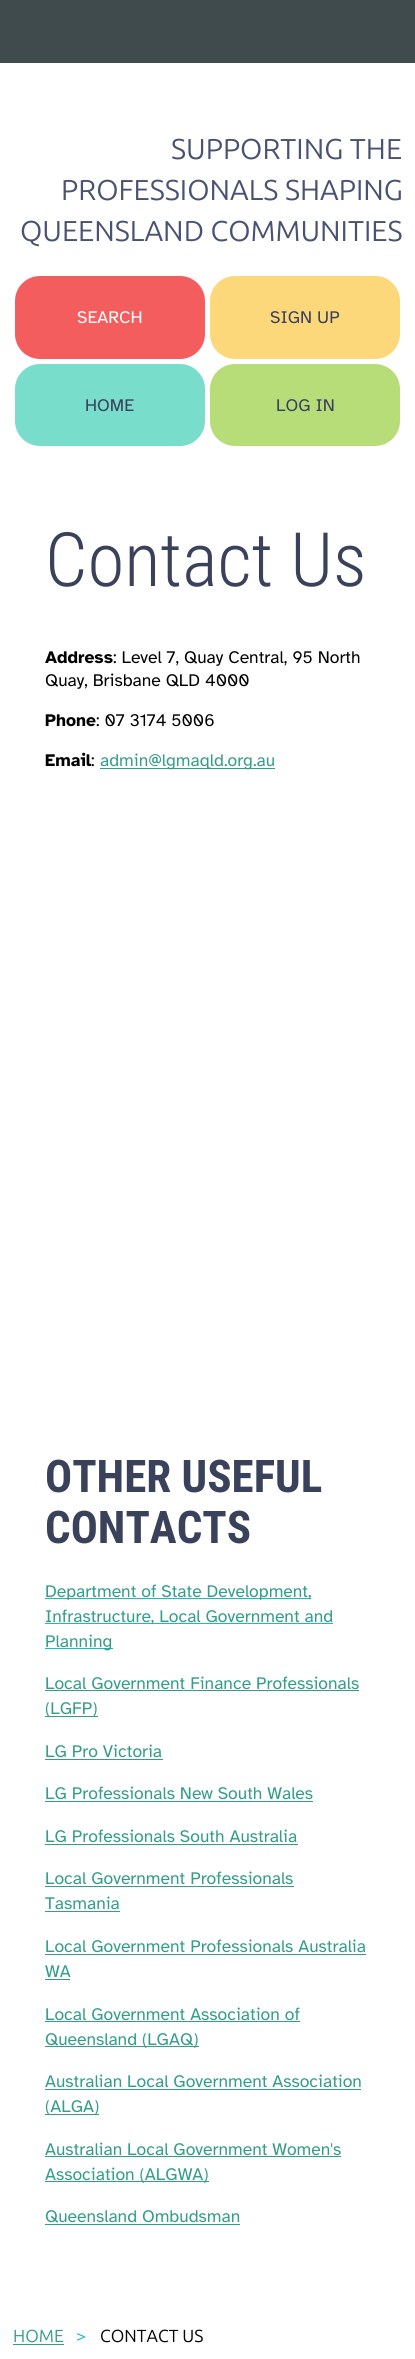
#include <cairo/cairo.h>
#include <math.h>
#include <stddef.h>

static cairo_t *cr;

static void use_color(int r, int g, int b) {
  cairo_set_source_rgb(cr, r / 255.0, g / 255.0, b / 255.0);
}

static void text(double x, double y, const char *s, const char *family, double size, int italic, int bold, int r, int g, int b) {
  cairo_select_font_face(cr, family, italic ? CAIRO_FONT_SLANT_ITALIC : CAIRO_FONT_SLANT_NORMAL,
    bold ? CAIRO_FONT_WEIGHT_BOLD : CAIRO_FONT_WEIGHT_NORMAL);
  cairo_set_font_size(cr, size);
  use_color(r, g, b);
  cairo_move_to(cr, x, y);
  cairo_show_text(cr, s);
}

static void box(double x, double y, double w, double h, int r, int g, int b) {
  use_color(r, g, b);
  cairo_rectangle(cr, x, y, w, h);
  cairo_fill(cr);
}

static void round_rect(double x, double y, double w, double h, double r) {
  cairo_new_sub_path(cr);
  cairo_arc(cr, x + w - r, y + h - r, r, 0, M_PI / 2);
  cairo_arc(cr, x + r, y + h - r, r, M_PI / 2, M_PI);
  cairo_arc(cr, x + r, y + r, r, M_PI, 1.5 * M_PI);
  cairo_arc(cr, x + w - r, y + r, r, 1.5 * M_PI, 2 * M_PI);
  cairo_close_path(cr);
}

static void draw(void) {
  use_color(255, 255, 255);
  cairo_paint(cr);
  box(0, 0, 415, 63, 64, 75, 77);
  use_color(243, 93, 93);
  round_rect(15, 276, 190, 83, 25);
  cairo_fill(cr);
  use_color(253, 216, 122);
  round_rect(210, 276, 190, 83, 25);
  cairo_fill(cr);
  use_color(121, 221, 203);
  round_rect(15, 364, 190, 82, 25);
  cairo_fill(cr);
  use_color(183, 221, 121);
  round_rect(210, 364, 190, 82, 25);
  cairo_fill(cr);
  box(100, 768, 175, 1, 51, 157, 138);
  box(45, 1598, 266, 1, 19, 191, 189);
  box(45, 1623, 288, 1, 19, 191, 189);
  box(45, 1648, 68, 1, 19, 191, 189);
  box(45, 1690, 314, 1, 51, 157, 138);
  box(45, 1716, 53, 1, 51, 157, 138);
  box(45, 1759, 118, 1, 51, 157, 138);
  box(45, 1801, 268, 1, 51, 157, 138);
  box(45, 1844, 253, 1, 51, 157, 138);
  box(45, 1886, 249, 1, 51, 157, 138);
  box(45, 1911, 75, 1, 51, 157, 138);
  box(45, 1954, 321, 1, 51, 157, 138);
  box(45, 1979, 25, 1, 51, 157, 138);
  box(45, 2021, 255, 1, 51, 157, 138);
  box(45, 2046, 154, 1, 51, 157, 138);
  box(45, 2089, 316, 1, 51, 157, 138);
  box(45, 2114, 54, 1, 51, 157, 138);
  box(45, 2156, 296, 1, 51, 157, 138);
  box(45, 2181, 164, 1, 51, 157, 138);
  box(45, 2224, 195, 1, 51, 157, 138);
  box(13, 2344, 51, 1, 51, 157, 138);
  text(171, 159, "SUPPORTING THE", "Ubuntu", 28.75, 0, 0, 73, 82, 115);
  text(61, 200, "PROFESSIONALS SHAPING", "Ubuntu", 28.75, 0, 0, 73, 82, 115);
  text(20, 241, "QUEENSLAND COMMUNITIES", "Ubuntu", 28.75, 0, 0, 73, 82, 115);
  text(77, 323, "SEARCH", "Atkinson Hyperlegible", 17.5, 0, 0, 255, 255, 255);
  text(270, 323, "SIGN UP", "Atkinson Hyperlegible", 17.5, 0, 0, 58, 65, 90);
  text(85, 411, "HOME", "Atkinson Hyperlegible", 17.5, 0, 0, 58, 65, 90);
  text(276, 411, "LOG IN", "Atkinson Hyperlegible", 17.5, 0, 0, 58, 65, 90);
  text(45, 586, "Contact Us", "Roboto Condensed Light", 75, 0, 0, 58, 65, 90);
  text(45, 663, "Address", "Atkinson Hyperlegible", 17.5, 0, 1, 0, 0, 0);
  text(113, 663, ": Level 7, Quay Central, 95 North", "Atkinson Hyperlegible", 17.5, 0, 0, 0, 0, 0);
  text(45, 686, "Quay, Brisbane QLD 4000", "Atkinson Hyperlegible", 17.5, 0, 0, 0, 0, 0);
  text(45, 726, "Phone", "Atkinson Hyperlegible", 17.5, 0, 1, 0, 0, 0);
  text(96, 726, ": 07 3174 5006", "Atkinson Hyperlegible", 17.5, 0, 0, 0, 0, 0);
  text(45, 766, "Email", "Atkinson Hyperlegible", 17.5, 0, 1, 0, 0, 0);
  text(91, 766, ":", "Atkinson Hyperlegible", 17.5, 0, 0, 0, 0, 0);
  text(100, 766, "admin@lgmaqld.org.au", "Atkinson Hyperlegible", 17.5, 0, 0, 51, 157, 138);
  text(45, 1492, "OTHER USEFUL", "Roboto Condensed", 45, 0, 1, 58, 65, 90);
  text(45, 1543, "CONTACTS", "Roboto Condensed", 45, 0, 1, 58, 65, 90);
  text(45, 1597, "Department of State Development,", "Atkinson Hyperlegible", 17.5, 0, 0, 51, 157, 138);
  text(45, 1622, "Infrastructure, Local Government and", "Atkinson Hyperlegible", 17.5, 0, 0, 51, 157, 138);
  text(45, 1647, "Planning", "Atkinson Hyperlegible", 17.5, 0, 0, 51, 157, 138);
  text(45, 1689, "Local Government Finance Professionals", "Atkinson Hyperlegible", 17.5, 0, 0, 51, 157, 138);
  text(45, 1714, "(LGFP)", "Atkinson Hyperlegible", 17.5, 0, 0, 51, 157, 138);
  text(45, 1757, "LG Pro Victoria", "Atkinson Hyperlegible", 17.5, 0, 0, 51, 157, 138);
  text(45, 1799, "LG Professionals New South Wales", "Atkinson Hyperlegible", 17.5, 0, 0, 51, 157, 138);
  text(45, 1842, "LG Professionals South Australia", "Atkinson Hyperlegible", 17.5, 0, 0, 51, 157, 138);
  text(45, 1884, "Local Government Professionals", "Atkinson Hyperlegible", 17.5, 0, 0, 51, 157, 138);
  text(45, 1909, "Tasmania", "Atkinson Hyperlegible", 17.5, 0, 0, 51, 157, 138);
  text(45, 1952, "Local Government Professionals Australia", "Atkinson Hyperlegible", 17.5, 0, 0, 51, 157, 138);
  text(45, 1977, "WA", "Atkinson Hyperlegible", 17.5, 0, 0, 51, 157, 138);
  text(45, 2020, "Local Government Association of", "Atkinson Hyperlegible", 17.5, 0, 0, 51, 157, 138);
  text(45, 2045, "Queensland (LGAQ)", "Atkinson Hyperlegible", 17.5, 0, 0, 51, 157, 138);
  text(45, 2087, "Australian Local Government Association", "Atkinson Hyperlegible", 17.5, 0, 0, 51, 157, 138);
  text(45, 2112, "(ALGA)", "Atkinson Hyperlegible", 17.5, 0, 0, 51, 157, 138);
  text(45, 2155, "Australian Local Government Women's", "Atkinson Hyperlegible", 17.5, 0, 0, 51, 157, 138);
  text(45, 2180, "Association (ALGWA)", "Atkinson Hyperlegible", 17.5, 0, 0, 51, 157, 138);
  text(45, 2222, "Queensland Ombudsman", "Atkinson Hyperlegible", 17.5, 0, 0, 51, 157, 138);
  text(13, 2342, "HOME", "Ubuntu", 17.5, 0, 0, 51, 157, 138);
  text(76, 2342, ">", "Ubuntu", 17.5, 0, 0, 19, 191, 189);
  text(100, 2342, "CONTACT US", "Ubuntu", 17.5, 0, 0, 0, 0, 0);
}

int main(void) {
  cairo_surface_t *surface = cairo_image_surface_create(CAIRO_FORMAT_RGB24, 415, 2359);
  cr = cairo_create(surface);
  cairo_font_options_t *options = cairo_font_options_create();
  cairo_font_options_set_hint_metrics(options, CAIRO_HINT_METRICS_OFF);
  cairo_font_options_set_hint_style(options, CAIRO_HINT_STYLE_NONE);
  cairo_set_font_options(cr, options);
  cairo_set_miter_limit(cr, 4);
  draw();
  cairo_surface_write_to_png(surface, "out.png");
  cairo_font_options_destroy(options);
  cairo_destroy(cr);
  cairo_surface_destroy(surface);
  return 0;
}
